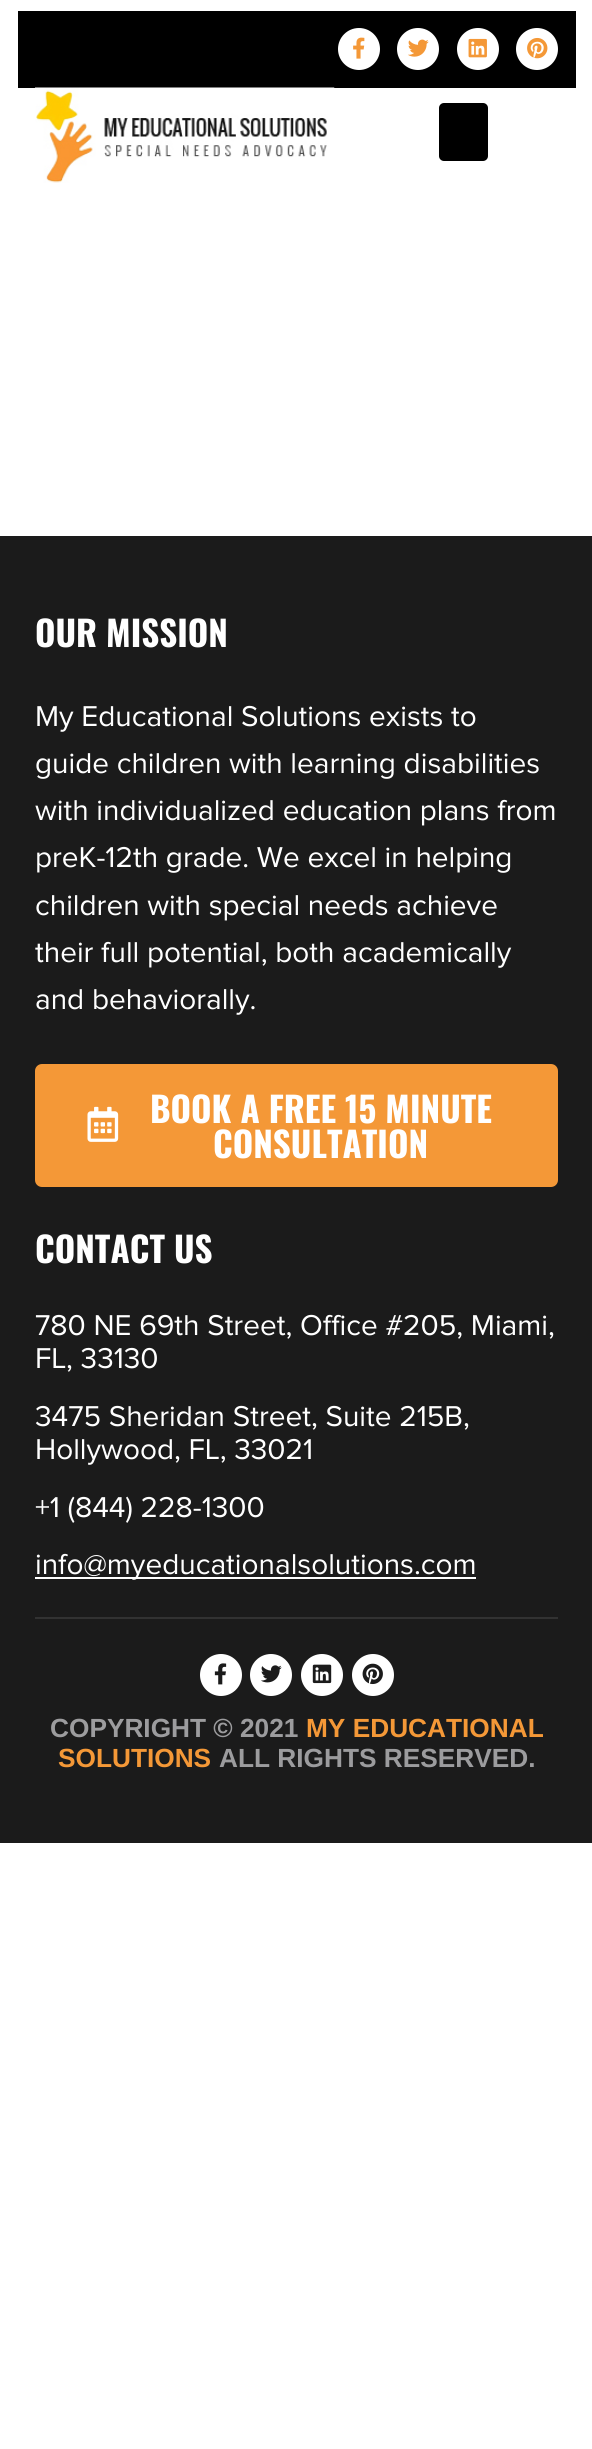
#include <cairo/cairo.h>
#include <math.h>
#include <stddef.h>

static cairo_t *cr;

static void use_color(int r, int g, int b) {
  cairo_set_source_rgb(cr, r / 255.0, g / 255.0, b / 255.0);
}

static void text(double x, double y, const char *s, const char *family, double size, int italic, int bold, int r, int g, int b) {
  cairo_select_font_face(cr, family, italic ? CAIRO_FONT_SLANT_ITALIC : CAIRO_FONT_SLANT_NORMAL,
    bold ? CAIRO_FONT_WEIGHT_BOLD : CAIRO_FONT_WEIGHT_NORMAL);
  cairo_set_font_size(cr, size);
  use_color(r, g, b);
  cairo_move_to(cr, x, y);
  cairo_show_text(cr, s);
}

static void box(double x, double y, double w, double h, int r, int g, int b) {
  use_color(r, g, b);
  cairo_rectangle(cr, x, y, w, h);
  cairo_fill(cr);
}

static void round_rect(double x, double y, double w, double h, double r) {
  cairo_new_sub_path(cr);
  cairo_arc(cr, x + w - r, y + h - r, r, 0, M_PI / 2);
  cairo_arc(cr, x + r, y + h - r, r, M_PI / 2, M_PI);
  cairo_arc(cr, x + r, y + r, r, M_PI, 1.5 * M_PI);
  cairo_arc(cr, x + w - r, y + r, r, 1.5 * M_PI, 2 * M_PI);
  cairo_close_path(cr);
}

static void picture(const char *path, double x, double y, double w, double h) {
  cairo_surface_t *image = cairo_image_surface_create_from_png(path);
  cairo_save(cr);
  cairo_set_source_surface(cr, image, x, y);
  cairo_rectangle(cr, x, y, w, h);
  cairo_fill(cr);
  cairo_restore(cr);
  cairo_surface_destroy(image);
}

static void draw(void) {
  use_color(255, 255, 255);
  cairo_paint(cr);
  box(18, 11, 558, 77, 0, 0, 0);
  use_color(255, 255, 255);
  cairo_arc(cr, 359, 49, 21, 0, 2 * M_PI);
  cairo_fill(cr);
  picture("img_01.png", 353, 37, 12, 22);
  cairo_arc(cr, 418, 49, 21, 0, 2 * M_PI);
  cairo_fill(cr);
  picture("img_02.png", 408, 39, 21, 18);
  cairo_arc(cr, 478, 49, 21, 0, 2 * M_PI);
  cairo_fill(cr);
  picture("img_03.png", 468, 38, 19, 20);
  cairo_arc(cr, 537, 49, 21, 0, 2 * M_PI);
  cairo_fill(cr);
  picture("img_04.png", 527, 37, 21, 22);
  picture("img_05.png", 35, 87, 300, 96);
  use_color(0, 0, 0);
  round_rect(439, 103, 49, 58, 5);
  cairo_fill(cr);
  box(0, 536, 592, 1307, 27, 27, 27);
  use_color(244, 152, 55);
  round_rect(35, 1064, 523, 123, 7);
  cairo_fill(cr);
  picture("img_06.png", 87, 1106, 32, 36);
  box(35, 1577, 441, 2, 255, 255, 255);
  box(35, 1617, 523, 2, 50, 50, 50);
  use_color(255, 255, 255);
  cairo_arc(cr, 221, 1675, 21, 0, 2 * M_PI);
  cairo_fill(cr);
  picture("img_07.png", 214, 1663, 13, 22);
  cairo_arc(cr, 271, 1675, 21, 0, 2 * M_PI);
  cairo_fill(cr);
  picture("img_08.png", 261, 1665, 21, 18);
  cairo_arc(cr, 322, 1675, 21, 0, 2 * M_PI);
  cairo_fill(cr);
  picture("img_09.png", 312, 1664, 20, 20);
  cairo_arc(cr, 373, 1675, 21, 0, 2 * M_PI);
  cairo_fill(cr);
  picture("img_10.png", 362, 1663, 21, 22);
  text(35, 647, "OUR MISSION", "Oswald", 35, 0, 1, 255, 255, 255);
  text(35, 726, "My Educational Solutions exists to", "Proxima Nova", 29.75, 0, 0, 255, 255, 255);
  text(35, 773, "guide children with learning disabilities", "Proxima Nova", 29.75, 0, 0, 255, 255, 255);
  text(35, 820, "with individualized education plans from", "Proxima Nova", 29.75, 0, 0, 255, 255, 255);
  text(35, 867, "preK-12th grade. We excel in helping", "Proxima Nova", 29.75, 0, 0, 255, 255, 255);
  text(35, 915, "children with special needs achieve", "Proxima Nova", 29.75, 0, 0, 255, 255, 255);
  text(35, 962, "their full potential, both academically", "Proxima Nova", 29.75, 0, 0, 255, 255, 255);
  text(35, 1009, "and behaviorally.", "Proxima Nova", 29.75, 0, 0, 255, 255, 255);
  text(150, 1123, "BOOK A FREE 15 MINUTE", "Oswald", 35, 0, 1, 255, 255, 255);
  text(213, 1158, "CONSULTATION", "Oswald", 35, 0, 1, 255, 255, 255);
  text(35, 1263, "CONTACT US", "Oswald", 35, 0, 1, 255, 255, 255);
  text(35, 1335, "780 NE 69th Street, Office #205, Miami,", "Proxima Nova", 29.75, 0, 0, 255, 255, 255);
  text(35, 1368, "FL, 33130", "Proxima Nova", 29.75, 0, 0, 255, 255, 255);
  text(35, 1426, "3475 Sheridan Street, Suite 215B,", "Proxima Nova", 29.75, 0, 0, 255, 255, 255);
  text(35, 1459, "Hollywood, FL, 33021", "Proxima Nova", 29.75, 0, 0, 255, 255, 255);
  text(35, 1517, "+1 (844) 228-1300", "Proxima Nova", 29.75, 0, 0, 255, 255, 255);
  text(35, 1574, "info@myeducationalsolutions.com", "Proxima Nova", 29.75, 0, 0, 255, 255, 255);
  text(50, 1737, "COPYRIGHT © 2021", "Liberation Sans", 26.25, 0, 1, 156, 156, 158);
  text(306, 1737, "MY EDUCATIONAL", "Liberation Sans", 26.25, 0, 1, 244, 152, 55);
  text(58, 1767, "SOLUTIONS", "Liberation Sans", 26.25, 0, 1, 244, 152, 55);
  text(219, 1767, "ALL RIGHTS RESERVED.", "Liberation Sans", 26.25, 0, 1, 156, 156, 158);
}

int main(void) {
  cairo_surface_t *surface = cairo_image_surface_create(CAIRO_FORMAT_RGB24, 592, 2449);
  cr = cairo_create(surface);
  cairo_font_options_t *options = cairo_font_options_create();
  cairo_font_options_set_hint_metrics(options, CAIRO_HINT_METRICS_OFF);
  cairo_font_options_set_hint_style(options, CAIRO_HINT_STYLE_NONE);
  cairo_set_font_options(cr, options);
  cairo_set_miter_limit(cr, 4);
  draw();
  cairo_surface_write_to_png(surface, "out.png");
  cairo_font_options_destroy(options);
  cairo_destroy(cr);
  cairo_surface_destroy(surface);
  return 0;
}
